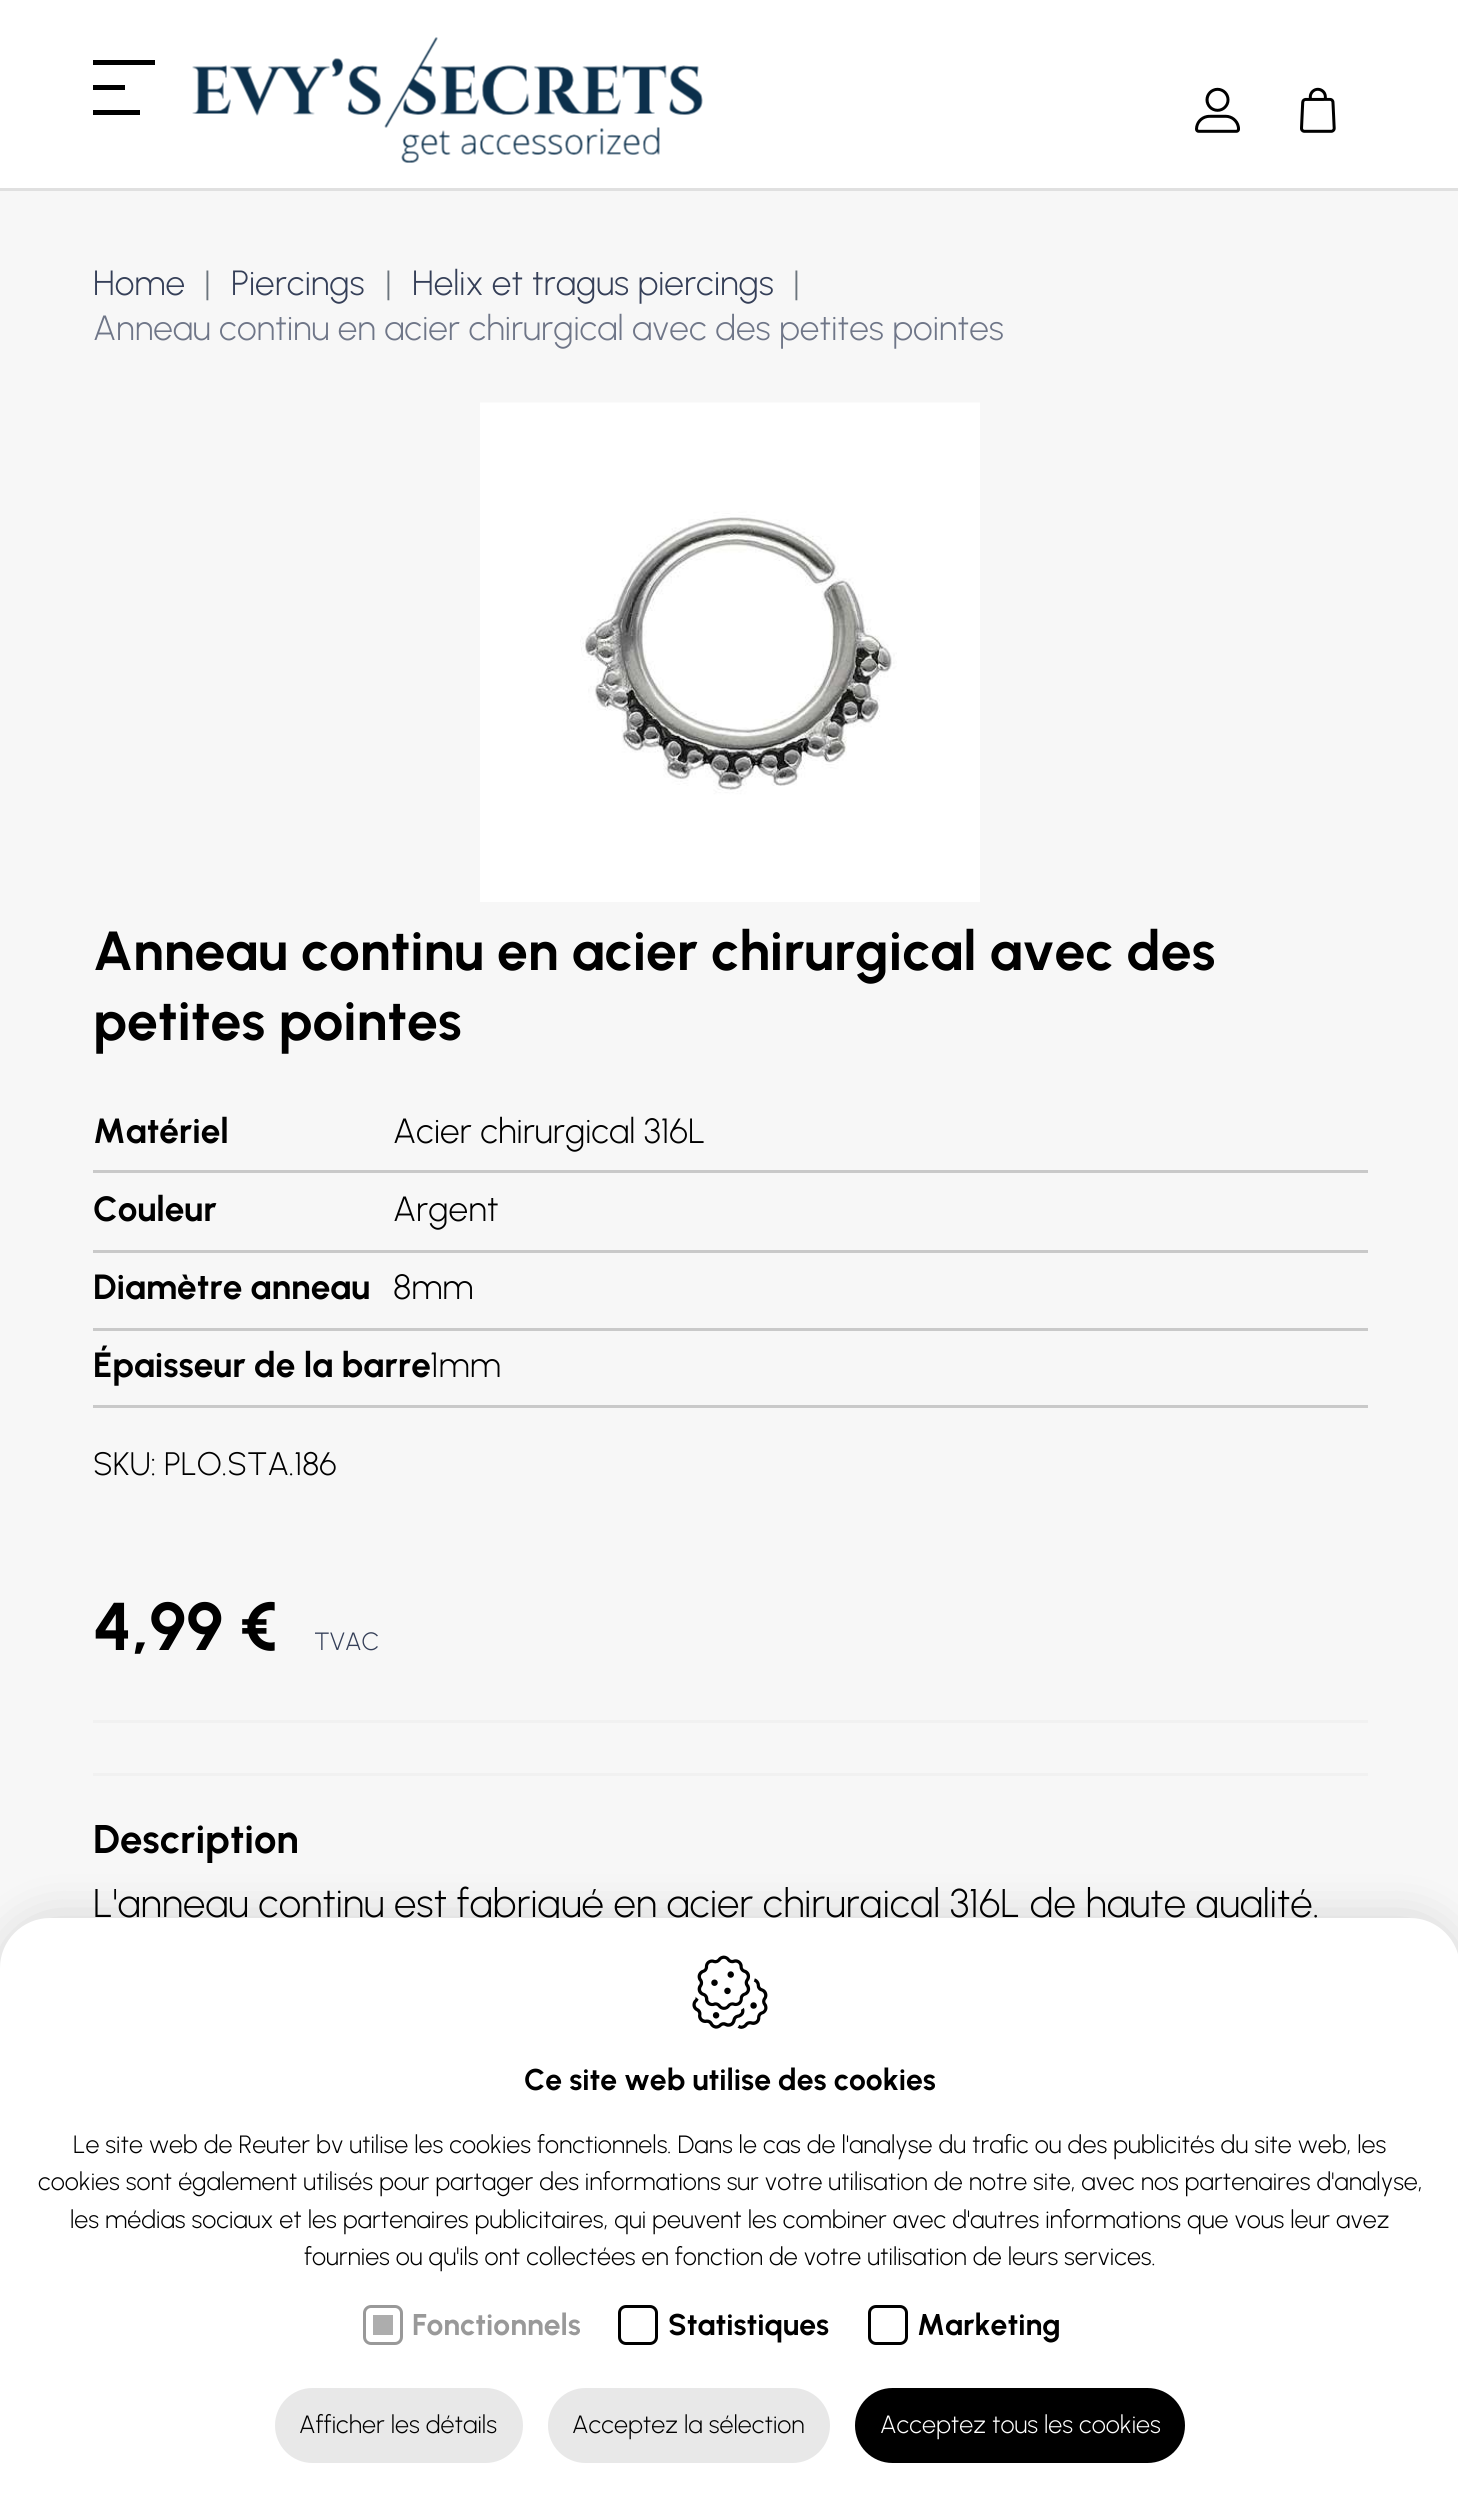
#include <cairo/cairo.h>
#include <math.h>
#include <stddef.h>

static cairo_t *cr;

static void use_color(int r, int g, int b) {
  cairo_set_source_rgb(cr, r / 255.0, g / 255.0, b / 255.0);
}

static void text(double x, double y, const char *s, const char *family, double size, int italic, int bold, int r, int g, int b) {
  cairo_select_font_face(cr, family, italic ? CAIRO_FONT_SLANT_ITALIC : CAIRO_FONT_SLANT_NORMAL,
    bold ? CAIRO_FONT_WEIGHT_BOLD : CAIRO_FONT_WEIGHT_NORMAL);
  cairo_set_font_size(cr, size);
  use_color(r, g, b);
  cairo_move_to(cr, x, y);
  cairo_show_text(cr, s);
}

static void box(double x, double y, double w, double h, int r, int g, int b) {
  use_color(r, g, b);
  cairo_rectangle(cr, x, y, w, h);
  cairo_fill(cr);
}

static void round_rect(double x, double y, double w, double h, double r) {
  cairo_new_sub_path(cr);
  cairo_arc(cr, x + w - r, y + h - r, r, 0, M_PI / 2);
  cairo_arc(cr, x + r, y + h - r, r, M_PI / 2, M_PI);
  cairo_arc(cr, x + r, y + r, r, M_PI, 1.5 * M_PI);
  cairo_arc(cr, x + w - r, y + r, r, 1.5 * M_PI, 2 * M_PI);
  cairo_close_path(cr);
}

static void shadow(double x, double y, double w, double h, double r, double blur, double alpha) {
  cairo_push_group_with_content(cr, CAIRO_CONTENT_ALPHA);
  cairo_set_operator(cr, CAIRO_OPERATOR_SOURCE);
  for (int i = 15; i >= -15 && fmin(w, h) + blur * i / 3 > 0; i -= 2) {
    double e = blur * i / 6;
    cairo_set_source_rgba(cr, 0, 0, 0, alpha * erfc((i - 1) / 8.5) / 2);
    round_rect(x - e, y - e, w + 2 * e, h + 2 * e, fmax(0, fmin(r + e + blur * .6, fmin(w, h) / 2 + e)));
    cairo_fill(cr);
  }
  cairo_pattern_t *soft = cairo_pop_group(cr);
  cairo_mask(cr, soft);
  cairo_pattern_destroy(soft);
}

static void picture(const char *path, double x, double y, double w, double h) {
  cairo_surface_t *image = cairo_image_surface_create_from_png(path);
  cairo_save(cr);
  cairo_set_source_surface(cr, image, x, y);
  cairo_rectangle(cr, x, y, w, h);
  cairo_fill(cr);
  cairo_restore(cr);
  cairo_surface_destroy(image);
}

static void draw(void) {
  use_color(247, 247, 247);
  cairo_paint(cr);
  box(0, 0, 1458, 188, 255, 255, 255);
  box(0, 188, 1458, 3, 224, 224, 224);
  box(93, 60, 62, 5, 0, 0, 0);
  box(93, 85, 32, 5, 0, 0, 0);
  box(93, 110, 47, 5, 0, 0, 0);
  picture("img_01.png", 192, 37, 511, 126);
  picture("img_02.png", 1195, 87, 45, 46);
  picture("img_03.png", 1300, 87, 36, 46);
  picture("img_04.png", 480, 402, 500, 500);
  box(93, 1170, 1275, 3, 201, 201, 201);
  box(93, 1250, 1275, 3, 201, 201, 201);
  box(93, 1328, 1275, 3, 201, 201, 201);
  box(93, 1405, 1275, 3, 201, 201, 201);
  box(93, 1720, 1275, 3, 241, 241, 241);
  box(93, 1773, 1275, 3, 241, 241, 241);
  use_color(0, 0, 0);
  shadow(3, 1920, 1455, 578, 48, 25, 0.15);
  text(93, 295, "Home", "Urbanist Light", 35, 0, 0, 53, 63, 88);
  text(204, 295, "|", "Urbanist Light", 35, 0, 0, 108, 117, 125);
  text(231, 295, "Piercings", "Urbanist Light", 35, 0, 0, 53, 63, 88);
  text(385, 295, "|", "Urbanist Light", 35, 0, 0, 108, 117, 125);
  text(412, 295, "Helix et tragus piercings", "Urbanist Light", 35, 0, 0, 53, 63, 88);
  text(793, 295, "|", "Urbanist Light", 35, 0, 0, 108, 117, 125);
  text(93, 340, "Anneau continu en acier chirurgical avec des petites pointes", "Urbanist Light", 35, 0, 0, 111, 118, 136);
  text(93, 970, "Anneau continu en acier chirurgical avec des", "Urbanist", 55, 0, 1, 0, 0, 0);
  text(93, 1040, "petites pointes", "Urbanist", 55, 0, 1, 0, 0, 0);
  text(93, 1143, "Matériel", "Urbanist", 35, 0, 1, 0, 0, 0);
  text(393, 1143, "Acier chirurgical 316L", "Urbanist Light", 35, 0, 0, 0, 0, 0);
  text(93, 1221, "Couleur", "Urbanist", 35, 0, 1, 0, 0, 0);
  text(393, 1221, "Argent", "Urbanist Light", 35, 0, 0, 0, 0, 0);
  text(93, 1299, "Diamètre anneau", "Urbanist", 35, 0, 1, 0, 0, 0);
  text(393, 1299, "8mm", "Urbanist Light", 35, 0, 0, 0, 0, 0);
  text(93, 1377, "Épaisseur de la barre", "Urbanist", 35, 0, 1, 0, 0, 0);
  text(430, 1377, "1mm", "Urbanist Light", 35, 0, 0, 0, 0, 0);
  text(93, 1475, "SKU: PLO.STA.186", "Urbanist Light", 32.5, 0, 0, 0, 0, 0);
  text(93, 1650, "4,99 €", "Urbanist", 67.5, 0, 1, 0, 0, 0);
  text(314, 1650, "TVAC", "Urbanist Light", 25, 0, 0, 53, 63, 88);
  text(93, 1853, "Description", "Urbanist", 40, 0, 1, 0, 0, 0);
  text(93, 1917, "L'anneau continu est fabriqué en acier chirurgical 316L de haute qualité.", "Urbanist Light", 40, 0, 0, 0, 0, 0);
  use_color(255, 255, 255);
  cairo_new_path(cr);
  cairo_move_to(cr, 50, 1918);
  cairo_line_to(cr, 1410, 1918);
  cairo_curve_to(cr, 1437.5, 1918, 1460, 1940.5, 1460, 1968);
  cairo_line_to(cr, 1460, 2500);
  cairo_line_to(cr, 0, 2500);
  cairo_line_to(cr, 0, 1968);
  cairo_curve_to(cr, 0, 1940.5, 22.5, 1918, 50, 1918);
  cairo_close_path(cr);
  cairo_fill(cr);
  picture("img_05.png", 692, 1955, 76, 74);
  text(524, 2090, "Ce site web utilise des cookies", "Urbanist", 30, 0, 1, 0, 0, 0);
  text(73, 2153, "Le site web de Reuter bv utilise les cookies fonctionnels. Dans le cas de l'analyse du trafic ou des publicités du site web, les", "Urbanist Light", 25, 0, 0, 0, 0, 0);
  text(38, 2190, "cookies sont également utilisés pour partager des informations sur votre utilisation de notre site, avec nos partenaires d'analyse,", "Urbanist Light", 25, 0, 0, 0, 0, 0);
  text(70, 2228, "les médias sociaux et les partenaires publicitaires, qui peuvent les combiner avec d'autres informations que vous leur avez", "Urbanist Light", 25, 0, 0, 0, 0, 0);
  text(304, 2265, "fournies ou qu'ils ont collectées en fonction de votre utilisation de leurs services.", "Urbanist Light", 25, 0, 0, 0, 0, 0);
  round_rect(364.5, 2306.5, 37, 37, 6.5);
  use_color(153, 153, 153);
  cairo_set_line_width(cr, 3);
  cairo_stroke(cr);
  text(412, 2335, "Fonctionnels", "Urbanist", 30, 0, 1, 153, 153, 153);
  box(373, 2315, 20, 20, 173, 173, 173);
  round_rect(619.5, 2306.5, 37, 37, 6.5);
  use_color(0, 0, 0);
  cairo_stroke(cr);
  text(668, 2335, "Statistiques", "Urbanist", 30, 0, 1, 0, 0, 0);
  round_rect(869.5, 2306.5, 37, 37, 6.5);
  cairo_stroke(cr);
  text(917, 2335, "Marketing", "Urbanist", 30, 0, 1, 0, 0, 0);
  use_color(232, 232, 232);
  round_rect(275, 2388, 248, 75, 37.5);
  cairo_fill(cr);
  text(299, 2433, "Afficher les détails", "Urbanist Light", 25, 0, 0, 0, 0, 0);
  use_color(232, 232, 232);
  round_rect(548, 2388, 282, 75, 37.5);
  cairo_fill(cr);
  text(572, 2433, "Acceptez la sélection", "Urbanist Light", 25, 0, 0, 0, 0, 0);
  round_rect(855, 2388, 330, 75, 37.5);
  cairo_fill(cr);
  text(880, 2433, "Acceptez tous les cookies", "Urbanist Light", 25, 0, 0, 255, 255, 255);
}

int main(void) {
  cairo_surface_t *surface = cairo_image_surface_create(CAIRO_FORMAT_RGB24, 1458, 2498);
  cr = cairo_create(surface);
  cairo_font_options_t *options = cairo_font_options_create();
  cairo_font_options_set_hint_metrics(options, CAIRO_HINT_METRICS_OFF);
  cairo_font_options_set_hint_style(options, CAIRO_HINT_STYLE_NONE);
  cairo_set_font_options(cr, options);
  cairo_set_miter_limit(cr, 4);
  draw();
  cairo_surface_write_to_png(surface, "out.png");
  cairo_font_options_destroy(options);
  cairo_destroy(cr);
  cairo_surface_destroy(surface);
  return 0;
}
